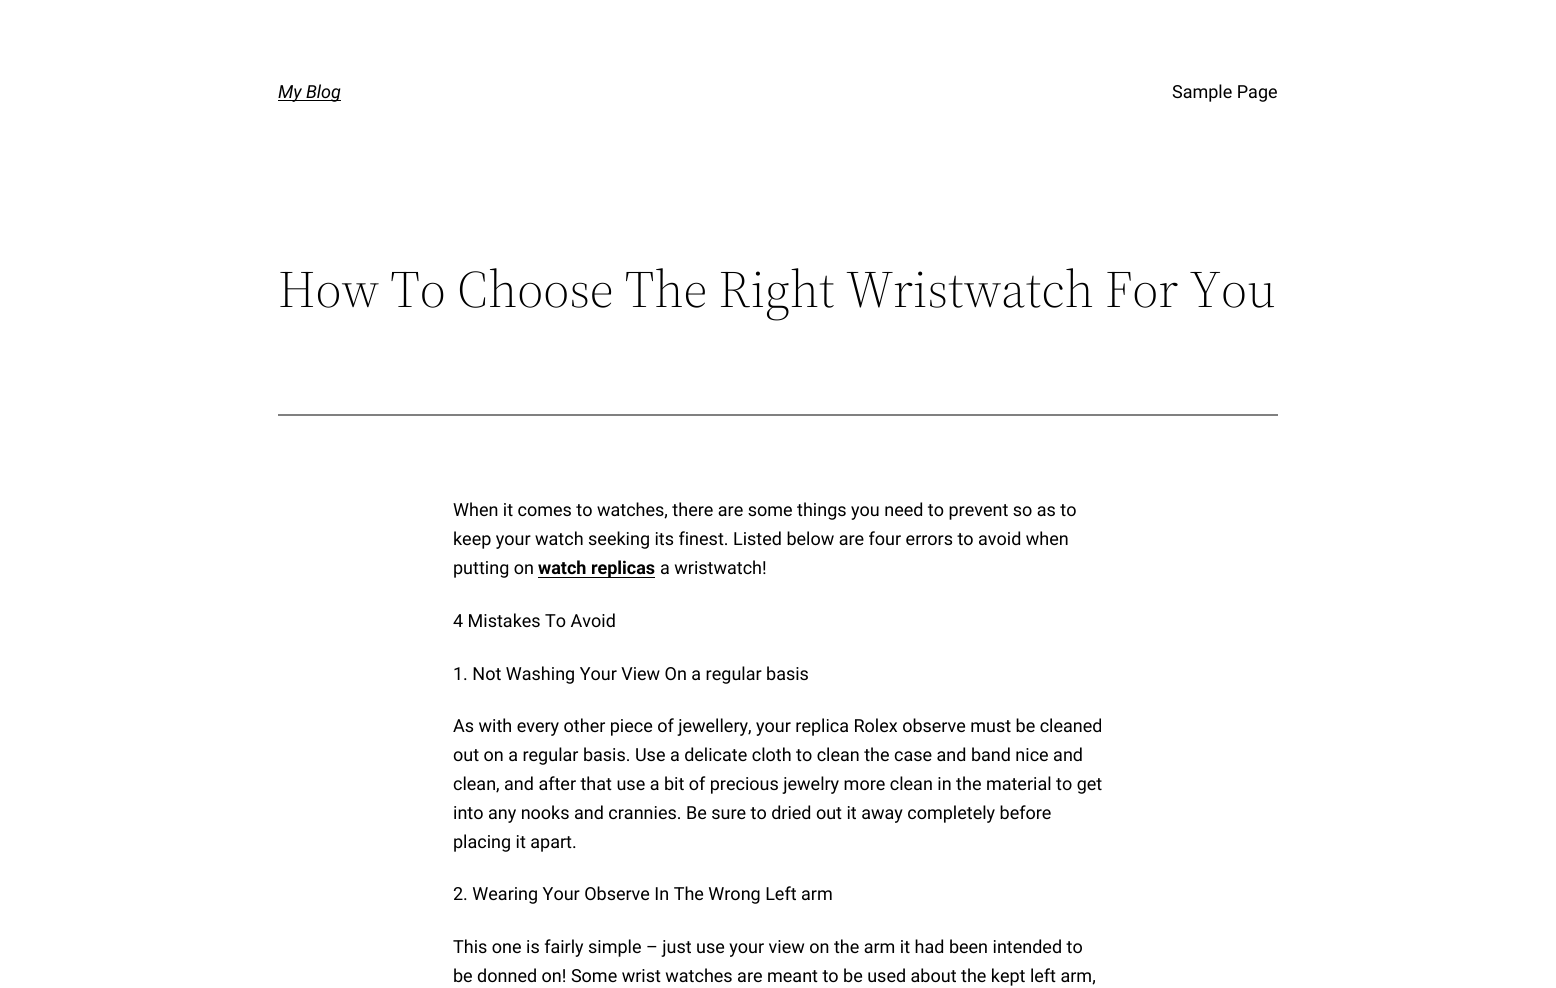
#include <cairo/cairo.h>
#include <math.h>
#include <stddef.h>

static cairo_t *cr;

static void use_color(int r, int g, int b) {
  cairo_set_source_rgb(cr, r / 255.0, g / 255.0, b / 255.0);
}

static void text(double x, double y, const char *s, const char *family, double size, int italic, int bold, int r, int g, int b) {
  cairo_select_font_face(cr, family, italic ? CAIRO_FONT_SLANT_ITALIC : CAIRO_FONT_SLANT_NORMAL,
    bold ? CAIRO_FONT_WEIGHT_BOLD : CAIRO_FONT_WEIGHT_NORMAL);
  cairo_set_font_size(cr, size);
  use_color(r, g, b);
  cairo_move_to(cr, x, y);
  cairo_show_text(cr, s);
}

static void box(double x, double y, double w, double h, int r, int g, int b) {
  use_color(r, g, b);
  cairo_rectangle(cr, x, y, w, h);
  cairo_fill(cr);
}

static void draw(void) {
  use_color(255, 255, 255);
  cairo_paint(cr);
  box(278, 100, 63, 1, 0, 0, 0);
  box(278, 414, 1000, 2, 128, 128, 128);
  box(538, 577, 117, 1, 0, 0, 0);
  text(278, 98, "My Blog", "Roboto", 18, 1, 0, 0, 0, 0);
  text(1172, 98, "Sample Page", "Roboto", 18, 0, 0, 0, 0, 0);
  text(278, 307, "How To Choose The Right Wristwatch For You", "Source Serif 4 Light", 52, 0, 0, 0, 0, 0);
  text(453, 516, "When it comes to watches, there are some things you need to prevent so as to", "Roboto", 18, 0, 0, 0, 0, 0);
  text(453, 545, "keep your watch seeking its finest. Listed below are four errors to avoid when", "Roboto", 18, 0, 0, 0, 0, 0);
  text(453, 574, "putting on", "Roboto", 18, 0, 0, 0, 0, 0);
  text(538, 574, "watch replicas", "Roboto", 18, 0, 1, 0, 0, 0);
  text(660, 574, "a wristwatch!", "Roboto", 18, 0, 0, 0, 0, 0);
  text(453, 627, "4 Mistakes To Avoid", "Roboto", 18, 0, 0, 0, 0, 0);
  text(453, 680, "1. Not Washing Your View On a regular basis", "Roboto", 18, 0, 0, 0, 0, 0);
  text(453, 732, "As with every other piece of jewellery, your replica Rolex observe must be cleaned", "Roboto", 18, 0, 0, 0, 0, 0);
  text(453, 761, "out on a regular basis. Use a delicate cloth to clean the case and band nice and", "Roboto", 18, 0, 0, 0, 0, 0);
  text(453, 790, "clean, and after that use a bit of precious jewelry more clean in the material to get", "Roboto", 18, 0, 0, 0, 0, 0);
  text(453, 819, "into any nooks and crannies. Be sure to dried out it away completely before", "Roboto", 18, 0, 0, 0, 0, 0);
  text(453, 848, "placing it apart.", "Roboto", 18, 0, 0, 0, 0, 0);
  text(453, 900, "2. Wearing Your Observe In The Wrong Left arm", "Roboto", 18, 0, 0, 0, 0, 0);
  text(453, 953, "This one is fairly simple – just use your view on the arm it had been intended to", "Roboto", 18, 0, 0, 0, 0, 0);
  text(453, 982, "be donned on! Some wrist watches are meant to be used about the kept left arm,", "Roboto", 18, 0, 0, 0, 0, 0);
}

int main(void) {
  cairo_surface_t *surface = cairo_image_surface_create(CAIRO_FORMAT_RGB24, 1556, 988);
  cr = cairo_create(surface);
  cairo_font_options_t *options = cairo_font_options_create();
  cairo_font_options_set_hint_metrics(options, CAIRO_HINT_METRICS_OFF);
  cairo_font_options_set_hint_style(options, CAIRO_HINT_STYLE_NONE);
  cairo_set_font_options(cr, options);
  cairo_set_miter_limit(cr, 4);
  draw();
  cairo_surface_write_to_png(surface, "out.png");
  cairo_font_options_destroy(options);
  cairo_destroy(cr);
  cairo_surface_destroy(surface);
  return 0;
}
